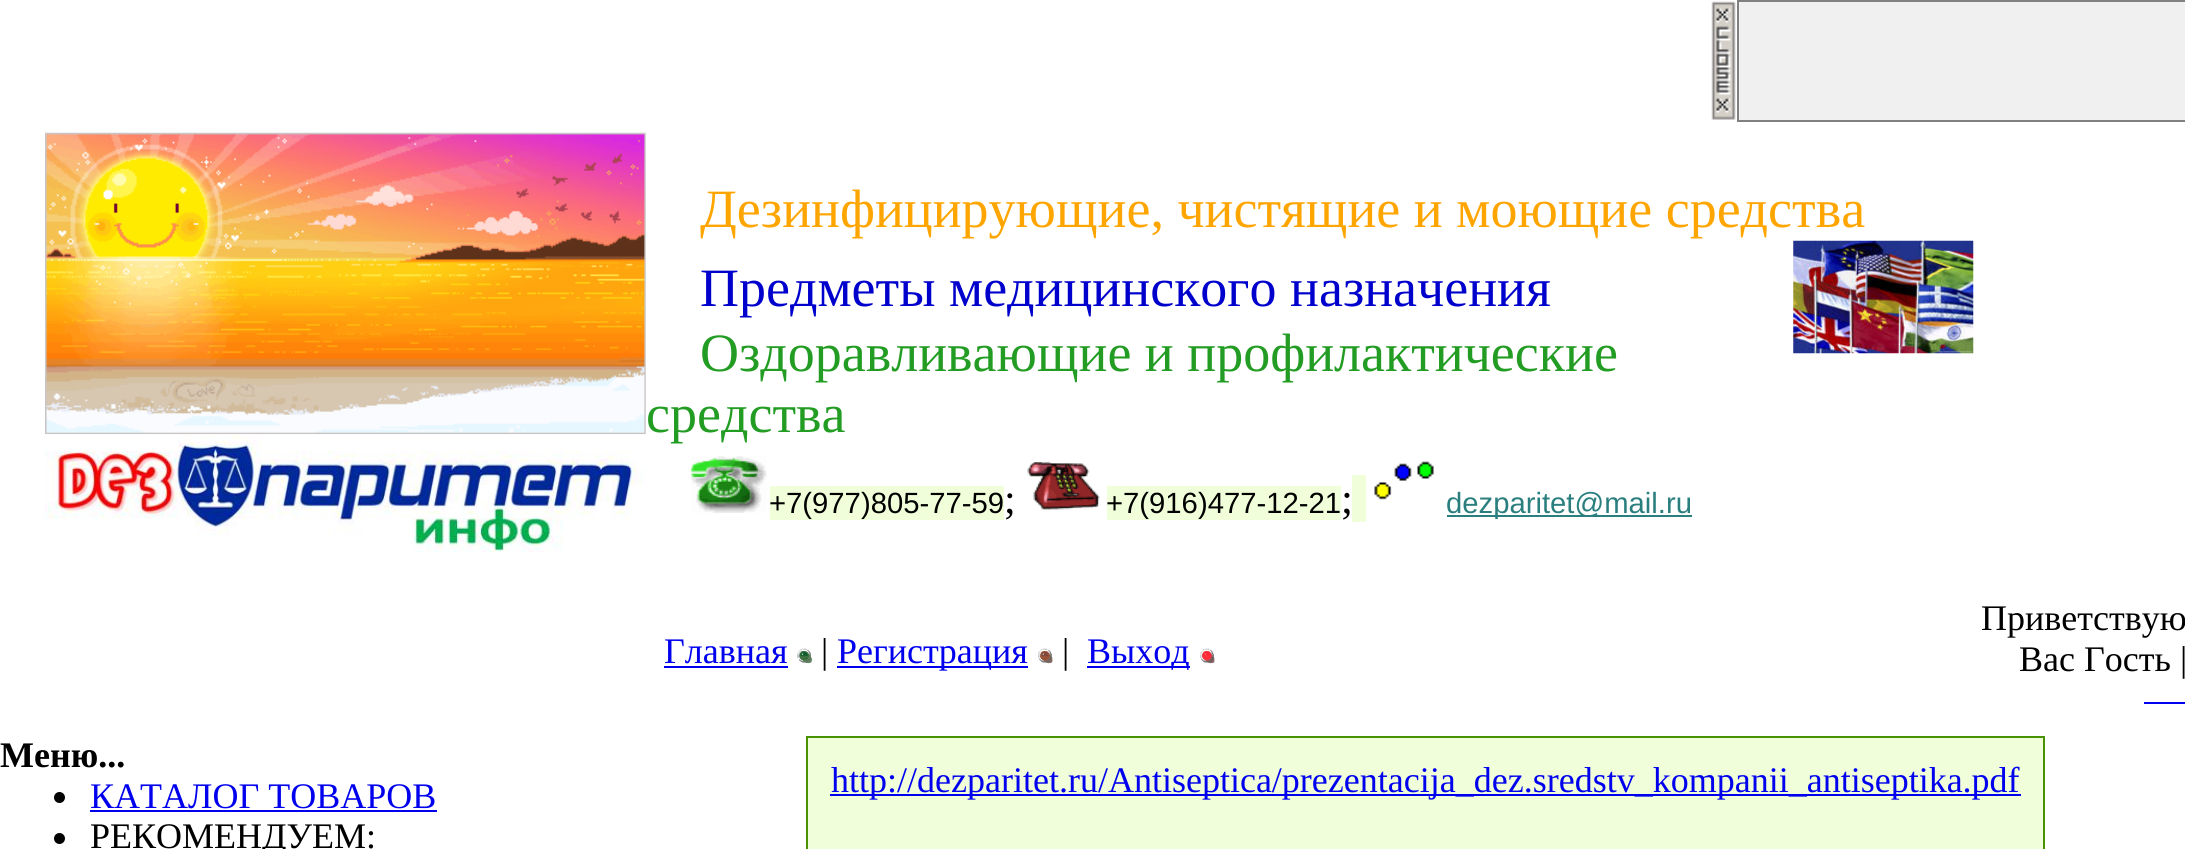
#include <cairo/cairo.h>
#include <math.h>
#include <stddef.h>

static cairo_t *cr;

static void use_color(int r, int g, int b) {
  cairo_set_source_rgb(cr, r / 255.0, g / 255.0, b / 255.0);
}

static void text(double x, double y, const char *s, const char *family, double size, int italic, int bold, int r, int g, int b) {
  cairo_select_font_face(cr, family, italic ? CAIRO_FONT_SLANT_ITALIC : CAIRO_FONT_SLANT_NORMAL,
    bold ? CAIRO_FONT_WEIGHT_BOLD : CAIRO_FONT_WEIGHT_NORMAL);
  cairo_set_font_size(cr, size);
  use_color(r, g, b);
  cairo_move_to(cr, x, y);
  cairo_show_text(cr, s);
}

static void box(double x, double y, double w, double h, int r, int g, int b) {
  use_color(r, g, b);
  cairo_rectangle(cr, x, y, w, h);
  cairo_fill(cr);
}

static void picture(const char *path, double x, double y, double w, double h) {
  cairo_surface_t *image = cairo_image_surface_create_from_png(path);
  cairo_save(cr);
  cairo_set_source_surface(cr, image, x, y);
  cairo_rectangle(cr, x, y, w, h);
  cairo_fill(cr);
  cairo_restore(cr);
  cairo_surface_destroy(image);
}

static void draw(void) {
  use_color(255, 255, 255);
  cairo_paint(cr);
  picture("img_01.png", 45, 132, 601, 303);
  picture("img_02.png", 45, 434, 601, 118);
  picture("img_03.png", 1793, 240, 181, 114);
  picture("img_04.png", 691, 456, 76, 57);
  box(770, 486, 234, 34, 240, 255, 217);
  picture("img_05.png", 1027, 462, 73, 48);
  box(1107, 486, 234, 34, 240, 255, 217);
  box(1352, 475, 14, 47, 240, 255, 217);
  picture("img_06.png", 1374, 461, 60, 39);
  box(1447, 515, 245, 2, 43, 126, 126);
  box(664, 666, 124, 2, 0, 0, 238);
  picture("img_07.png", 797, 648, 16, 16);
  box(837, 666, 191, 2, 0, 0, 238);
  picture("img_08.png", 1038, 648, 15, 16);
  box(1087, 666, 103, 2, 0, 0, 238);
  picture("img_09.png", 1200, 648, 15, 16);
  box(2144, 702, 41, 2, 0, 0, 238);
  use_color(0, 0, 0);
  cairo_arc(cr, 59.5, 797.5, 5.5, 0, 2 * M_PI);
  cairo_fill(cr);
  box(90, 810, 347, 2, 0, 0, 238);
  use_color(0, 0, 0);
  cairo_arc(cr, 59.5, 838.5, 5.5, 0, 2 * M_PI);
  cairo_fill(cr);
  use_color(240, 255, 217);
  cairo_rectangle(cr, 807, 737, 1237, 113);
  cairo_fill_preserve(cr);
  use_color(73, 146, 0);
  cairo_stroke(cr);
  picture("img_10.png", 1711, 1, 25, 119);
  use_color(240, 240, 240);
  cairo_rectangle(cr, 1738, 1, 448, 120);
  cairo_fill_preserve(cr);
  use_color(128, 128, 128);
  cairo_stroke(cr);
  box(830, 794, 1191, 2, 0, 0, 238);
  text(700, 227, "Дезинфицирующие, чистящие и моющие средства", "Liberation Serif", 54, 0, 0, 255, 165, 0);
  text(700, 306, "Предметы медицинского назначения", "Liberation Serif", 54, 0, 0, 0, 0, 205);
  text(700, 371, "Оздоравливающие и профилактические", "Liberation Serif", 54, 0, 0, 34, 156, 34);
  text(646, 432, "средства", "Liberation Serif", 54, 0, 0, 34, 156, 34);
  text(769, 513, "+7(977)805-77-59", "Liberation Sans", 29.25, 0, 0, 0, 0, 0);
  text(1004, 513, ";", "Liberation Serif", 42, 0, 0, 0, 0, 0);
  text(1106, 513, "+7(916)477-12-21", "Liberation Sans", 29.25, 0, 0, 0, 0, 0);
  text(1341, 513, ";", "Liberation Serif", 43, 0, 0, 0, 0, 0);
  text(1446, 513, "dezparitet@mail.ru", "Liberation Sans", 29.25, 0, 0, 43, 126, 126);
  text(664, 663, "Главная", "Liberation Serif", 36, 0, 0, 0, 0, 238);
  text(821, 663, "|", "Liberation Serif", 36, 0, 0, 0, 0, 0);
  text(837, 663, "Регистрация", "Liberation Serif", 36, 0, 0, 0, 0, 238);
  text(1062, 663, "|", "Liberation Serif", 36, 0, 0, 0, 0, 0);
  text(1087, 663, "Выход", "Liberation Serif", 36, 0, 0, 0, 0, 238);
  text(1981, 630, "Приветствую", "Liberation Serif", 36, 0, 0, 0, 0, 0);
  text(2019, 671, "Вас Гость |", "Liberation Serif", 36, 0, 0, 0, 0, 0);
  text(0, 767, "Меню...", "Liberation Serif", 36, 0, 1, 0, 0, 0);
  text(90, 808, "КАТАЛОГ ТОВАРОВ", "Liberation Serif", 36, 0, 0, 0, 0, 238);
  text(90, 848, "РЕКОМЕНДУЕМ:", "Liberation Serif", 36, 0, 0, 0, 0, 0);
  text(831, 792, "http://dezparitet.ru/Antiseptica/prezentacija_dez.sredstv_kompanii_antiseptika.pdf", "Liberation Serif", 36, 0, 0, 0, 0, 238);
}

int main(void) {
  cairo_surface_t *surface = cairo_image_surface_create(CAIRO_FORMAT_RGB24, 2185, 849);
  cr = cairo_create(surface);
  cairo_font_options_t *options = cairo_font_options_create();
  cairo_font_options_set_hint_metrics(options, CAIRO_HINT_METRICS_OFF);
  cairo_font_options_set_hint_style(options, CAIRO_HINT_STYLE_NONE);
  cairo_set_font_options(cr, options);
  cairo_set_miter_limit(cr, 4);
  draw();
  cairo_surface_write_to_png(surface, "out.png");
  cairo_font_options_destroy(options);
  cairo_destroy(cr);
  cairo_surface_destroy(surface);
  return 0;
}
